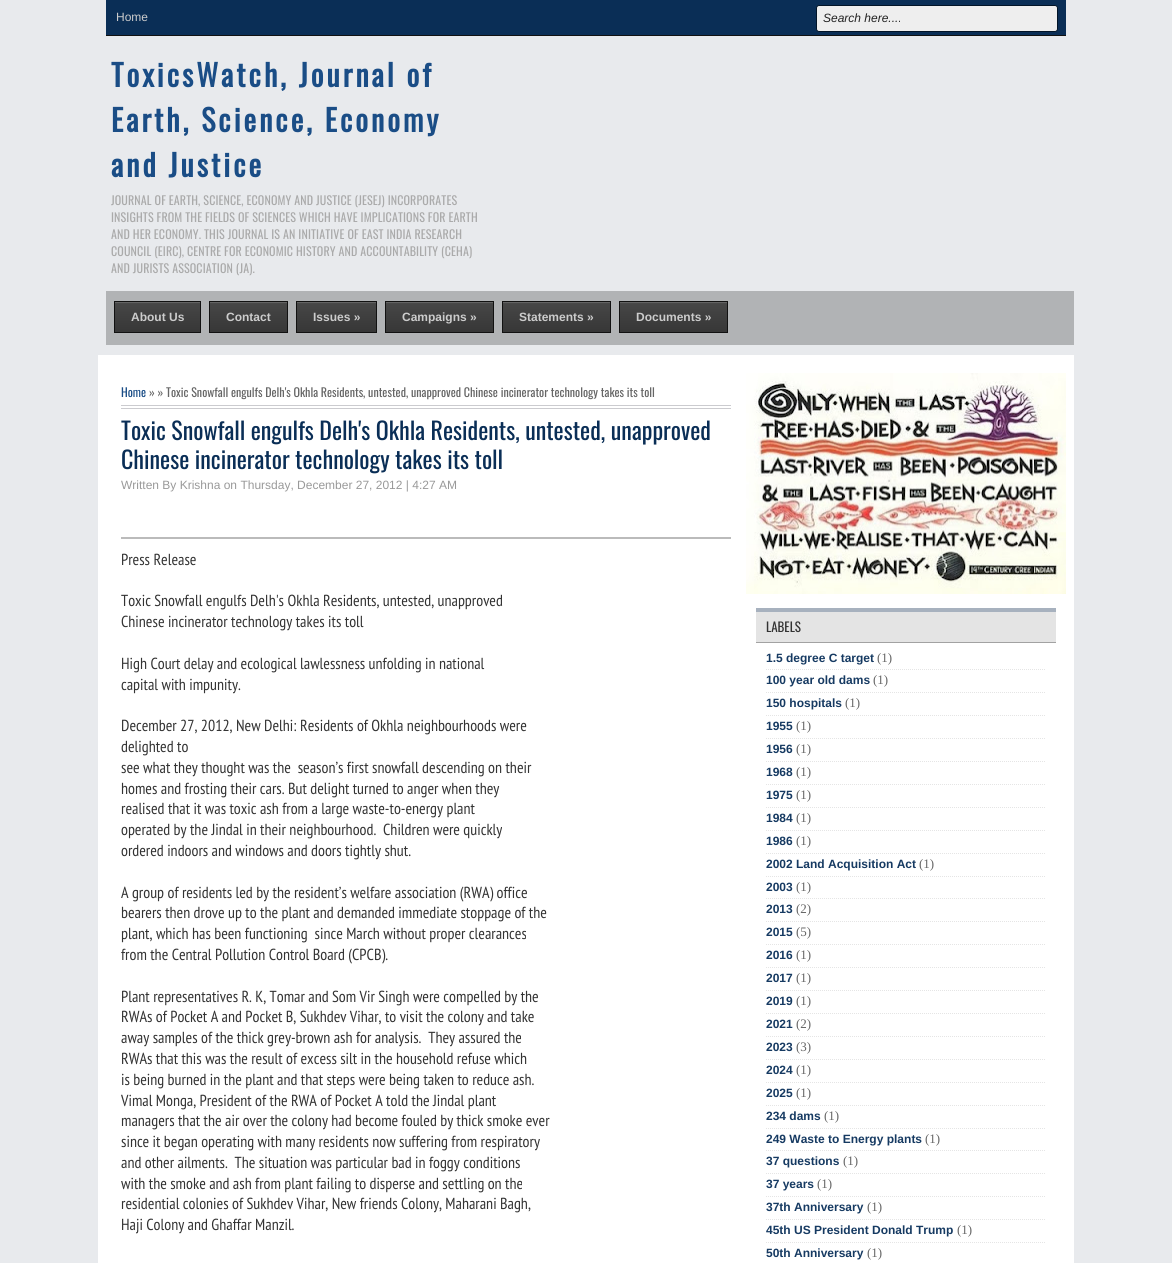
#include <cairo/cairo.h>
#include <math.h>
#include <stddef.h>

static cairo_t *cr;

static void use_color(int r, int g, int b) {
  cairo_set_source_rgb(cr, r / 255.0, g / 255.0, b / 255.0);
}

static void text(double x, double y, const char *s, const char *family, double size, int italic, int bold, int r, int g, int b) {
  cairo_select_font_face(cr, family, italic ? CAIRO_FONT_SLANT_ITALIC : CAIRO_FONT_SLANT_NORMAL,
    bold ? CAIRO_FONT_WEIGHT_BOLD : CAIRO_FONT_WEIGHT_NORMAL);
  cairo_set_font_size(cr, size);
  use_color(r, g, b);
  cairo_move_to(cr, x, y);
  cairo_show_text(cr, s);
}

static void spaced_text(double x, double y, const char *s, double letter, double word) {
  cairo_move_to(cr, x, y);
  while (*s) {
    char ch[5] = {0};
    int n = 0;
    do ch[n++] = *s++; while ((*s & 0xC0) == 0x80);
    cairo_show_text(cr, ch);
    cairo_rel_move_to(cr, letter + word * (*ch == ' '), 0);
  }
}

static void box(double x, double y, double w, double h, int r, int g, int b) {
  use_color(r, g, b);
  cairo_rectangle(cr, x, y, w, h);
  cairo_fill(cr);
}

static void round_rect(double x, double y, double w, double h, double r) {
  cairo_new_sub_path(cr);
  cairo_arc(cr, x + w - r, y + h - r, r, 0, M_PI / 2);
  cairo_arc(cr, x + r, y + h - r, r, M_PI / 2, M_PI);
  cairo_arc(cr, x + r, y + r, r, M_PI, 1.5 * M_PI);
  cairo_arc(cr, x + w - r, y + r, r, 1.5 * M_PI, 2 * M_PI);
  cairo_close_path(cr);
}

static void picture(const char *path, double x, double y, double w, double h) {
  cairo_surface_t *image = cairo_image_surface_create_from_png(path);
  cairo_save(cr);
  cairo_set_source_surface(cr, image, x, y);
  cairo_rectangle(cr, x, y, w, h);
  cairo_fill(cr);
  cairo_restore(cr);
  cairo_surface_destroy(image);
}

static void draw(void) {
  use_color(232, 234, 237);
  cairo_paint(cr);
  box(106, 0, 960, 35, 10, 46, 86);
  box(106, 35, 960, 1, 17, 17, 17);
  use_color(238, 238, 238);
  round_rect(816.5, 5.5, 241, 26, 2.5);
  cairo_fill_preserve(cr);
  use_color(2, 20, 39);
  cairo_set_line_width(cr, 1);
  cairo_stroke(cr);
  box(106, 291, 968, 54, 177, 179, 181);
  picture("img_01.png", 115, 302, 85, 30);
  cairo_rectangle(cr, 114.5, 301.5, 86, 31);
  use_color(17, 17, 17);
  cairo_stroke(cr);
  picture("img_02.png", 210, 302, 77, 30);
  cairo_rectangle(cr, 209.5, 301.5, 78, 31);
  cairo_stroke(cr);
  picture("img_03.png", 297, 302, 79, 30);
  cairo_rectangle(cr, 296.5, 301.5, 80, 31);
  cairo_stroke(cr);
  picture("img_04.png", 386, 302, 107, 30);
  cairo_rectangle(cr, 385.5, 301.5, 108, 31);
  cairo_stroke(cr);
  picture("img_04.png", 503, 302, 107, 30);
  cairo_rectangle(cr, 502.5, 301.5, 108, 31);
  cairo_stroke(cr);
  picture("img_04.png", 620, 302, 107, 30);
  cairo_rectangle(cr, 619.5, 301.5, 108, 31);
  cairo_stroke(cr);
  box(98, 355, 976, 908, 255, 255, 255);
  box(121, 405, 610, 1, 203, 203, 207);
  box(121, 408, 610, 1, 203, 203, 207);
  box(121, 537, 610, 2, 187, 187, 187);
  picture("img_05.png", 746, 373, 320, 221);
  box(756, 612, 300, 30, 228, 228, 228);
  box(756, 608, 300, 4, 167, 177, 190);
  box(756, 642, 300, 1, 162, 162, 162);
  cairo_new_path(cr);
  cairo_move_to(cr, 766, 669.5);
  cairo_line_to(cr, 1046, 669.5);
  use_color(229, 229, 229);
  cairo_set_dash(cr, (double[]){1, 1}, 2, 0);
  cairo_stroke(cr);
  cairo_new_path(cr);
  cairo_move_to(cr, 766, 692.5);
  cairo_line_to(cr, 1046, 692.5);
  cairo_stroke(cr);
  cairo_new_path(cr);
  cairo_move_to(cr, 766, 715.5);
  cairo_line_to(cr, 1046, 715.5);
  cairo_stroke(cr);
  cairo_new_path(cr);
  cairo_move_to(cr, 766, 738.5);
  cairo_line_to(cr, 1046, 738.5);
  cairo_stroke(cr);
  cairo_new_path(cr);
  cairo_move_to(cr, 766, 761.5);
  cairo_line_to(cr, 1046, 761.5);
  cairo_stroke(cr);
  cairo_new_path(cr);
  cairo_move_to(cr, 766, 784.5);
  cairo_line_to(cr, 1046, 784.5);
  cairo_stroke(cr);
  cairo_new_path(cr);
  cairo_move_to(cr, 766, 807.5);
  cairo_line_to(cr, 1046, 807.5);
  cairo_stroke(cr);
  cairo_new_path(cr);
  cairo_move_to(cr, 766, 830.5);
  cairo_line_to(cr, 1046, 830.5);
  cairo_stroke(cr);
  cairo_new_path(cr);
  cairo_move_to(cr, 766, 853.5);
  cairo_line_to(cr, 1046, 853.5);
  cairo_stroke(cr);
  cairo_new_path(cr);
  cairo_move_to(cr, 766, 876.5);
  cairo_line_to(cr, 1046, 876.5);
  cairo_stroke(cr);
  cairo_new_path(cr);
  cairo_move_to(cr, 766, 898.5);
  cairo_line_to(cr, 1046, 898.5);
  cairo_stroke(cr);
  cairo_new_path(cr);
  cairo_move_to(cr, 766, 921.5);
  cairo_line_to(cr, 1046, 921.5);
  cairo_stroke(cr);
  cairo_new_path(cr);
  cairo_move_to(cr, 766, 944.5);
  cairo_line_to(cr, 1046, 944.5);
  cairo_stroke(cr);
  cairo_new_path(cr);
  cairo_move_to(cr, 766, 967.5);
  cairo_line_to(cr, 1046, 967.5);
  cairo_stroke(cr);
  cairo_new_path(cr);
  cairo_move_to(cr, 766, 990.5);
  cairo_line_to(cr, 1046, 990.5);
  cairo_stroke(cr);
  cairo_new_path(cr);
  cairo_move_to(cr, 766, 1013.5);
  cairo_line_to(cr, 1046, 1013.5);
  cairo_stroke(cr);
  cairo_new_path(cr);
  cairo_move_to(cr, 766, 1036.5);
  cairo_line_to(cr, 1046, 1036.5);
  cairo_stroke(cr);
  cairo_new_path(cr);
  cairo_move_to(cr, 766, 1059.5);
  cairo_line_to(cr, 1046, 1059.5);
  cairo_stroke(cr);
  cairo_new_path(cr);
  cairo_move_to(cr, 766, 1082.5);
  cairo_line_to(cr, 1046, 1082.5);
  cairo_stroke(cr);
  cairo_new_path(cr);
  cairo_move_to(cr, 766, 1105.5);
  cairo_line_to(cr, 1046, 1105.5);
  cairo_stroke(cr);
  cairo_new_path(cr);
  cairo_move_to(cr, 766, 1128.5);
  cairo_line_to(cr, 1046, 1128.5);
  cairo_stroke(cr);
  cairo_new_path(cr);
  cairo_move_to(cr, 766, 1150.5);
  cairo_line_to(cr, 1046, 1150.5);
  cairo_stroke(cr);
  cairo_new_path(cr);
  cairo_move_to(cr, 766, 1173.5);
  cairo_line_to(cr, 1046, 1173.5);
  cairo_stroke(cr);
  cairo_new_path(cr);
  cairo_move_to(cr, 766, 1196.5);
  cairo_line_to(cr, 1046, 1196.5);
  cairo_stroke(cr);
  cairo_new_path(cr);
  cairo_move_to(cr, 766, 1219.5);
  cairo_line_to(cr, 1046, 1219.5);
  cairo_stroke(cr);
  cairo_new_path(cr);
  cairo_move_to(cr, 766, 1242.5);
  cairo_line_to(cr, 1046, 1242.5);
  cairo_stroke(cr);
  text(116, 21, "Home", "Liberation Sans", 12, 0, 0, 204, 204, 204);
  text(823, 22, "Search here....", "Liberation Sans", 12, 1, 0, 34, 34, 34);
  cairo_select_font_face(cr, "Oswald", CAIRO_FONT_SLANT_NORMAL, CAIRO_FONT_WEIGHT_BOLD);
  cairo_set_font_size(cr, 30);
  use_color(26, 77, 134);
  spaced_text(111, 87, "ToxicsWatch, Journal of", 3, 0);
  spaced_text(111, 132, "Earth, Science, Economy", 3, 0);
  spaced_text(111, 177, "and Justice", 3, 0);
  cairo_select_font_face(cr, "Oswald", CAIRO_FONT_SLANT_NORMAL, CAIRO_FONT_WEIGHT_NORMAL);
  cairo_set_font_size(cr, 12);
  use_color(170, 170, 170);
  spaced_text(111, 205, "JOURNAL OF EARTH, SCIENCE, ECONOMY AND JUSTICE (JESEJ) INCORPORATES", 0.12, 0);
  spaced_text(111, 222, "INSIGHTS FROM THE FIELDS OF SCIENCES WHICH HAVE IMPLICATIONS FOR EARTH", 0.12, 0);
  spaced_text(111, 239, "AND HER ECONOMY. THIS JOURNAL IS AN INITIATIVE OF EAST INDIA RESEARCH", 0.12, 0);
  spaced_text(111, 256, "COUNCIL (EIRC), CENTRE FOR ECONOMIC HISTORY AND ACCOUNTABILITY (CEHA)", 0.12, 0);
  spaced_text(111, 273, "AND JURISTS ASSOCIATION (JA).", 0.12, 0);
  text(131, 321, "About Us", "Liberation Sans", 12, 0, 1, 204, 204, 204);
  text(226, 321, "Contact", "Liberation Sans", 12, 0, 1, 204, 204, 204);
  text(313, 321, "Issues »", "Liberation Sans", 12, 0, 1, 204, 204, 204);
  text(402, 321, "Campaigns »", "Liberation Sans", 12, 0, 1, 204, 204, 204);
  text(519, 321, "Statements »", "Liberation Sans", 12, 0, 1, 204, 204, 204);
  text(636, 321, "Documents »", "Liberation Sans", 12, 0, 1, 204, 204, 204);
  text(121, 397, "Home", "Oswald", 12, 0, 0, 26, 77, 134);
  text(149, 397, "» » Toxic Snowfall engulfs Delh's Okhla Residents, untested, unapproved Chinese incinerator technology takes its toll", "Oswald", 12, 0, 0, 102, 102, 102);
  text(121, 440, "Toxic Snowfall engulfs Delh's Okhla Residents, untested, unapproved", "Oswald", 24, 0, 0, 10, 46, 86);
  text(121, 469, "Chinese incinerator technology takes its toll", "Oswald", 24, 0, 0, 10, 46, 86);
  text(121, 489, "Written By Krishna on Thursday, December 27, 2012 | 4:27 AM", "Liberation Sans", 12, 0, 0, 153, 153, 153);
  text(121, 565, "Press Release", "PT Sans Narrow", 16, 0, 0, 51, 51, 51);
  text(121, 606, "Toxic Snowfall engulfs Delh's Okhla Residents, untested, unapproved", "PT Sans Narrow", 16, 0, 0, 51, 51, 51);
  text(121, 627, "Chinese incinerator technology takes its toll", "PT Sans Narrow", 16, 0, 0, 51, 51, 51);
  text(121, 669, "High Court delay and ecological lawlessness unfolding in national", "PT Sans Narrow", 16, 0, 0, 51, 51, 51);
  text(121, 690, "capital with impunity.", "PT Sans Narrow", 16, 0, 0, 51, 51, 51);
  text(121, 731, "December 27, 2012, New Delhi: Residents of Okhla neighbourhoods were", "PT Sans Narrow", 16, 0, 0, 51, 51, 51);
  text(121, 752, "delighted to", "PT Sans Narrow", 16, 0, 0, 51, 51, 51);
  text(121, 773, "see what they thought was the  season’s first snowfall descending on their", "PT Sans Narrow", 16, 0, 0, 51, 51, 51);
  text(121, 794, "homes and frosting their cars. But delight turned to anger when they", "PT Sans Narrow", 16, 0, 0, 51, 51, 51);
  text(121, 814, "realised that it was toxic ash from a large waste-to-energy plant", "PT Sans Narrow", 16, 0, 0, 51, 51, 51);
  text(121, 835, "operated by the Jindal in their neighbourhood.  Children were quickly", "PT Sans Narrow", 16, 0, 0, 51, 51, 51);
  text(121, 856, "ordered indoors and windows and doors tightly shut.", "PT Sans Narrow", 16, 0, 0, 51, 51, 51);
  text(121, 898, "A group of residents led by the resident’s welfare association (RWA) office", "PT Sans Narrow", 16, 0, 0, 51, 51, 51);
  text(121, 918, "bearers then drove up to the plant and demanded immediate stoppage of the", "PT Sans Narrow", 16, 0, 0, 51, 51, 51);
  text(121, 939, "plant, which has been functioning  since March without proper clearances", "PT Sans Narrow", 16, 0, 0, 51, 51, 51);
  text(121, 960, "from the Central Pollution Control Board (CPCB).", "PT Sans Narrow", 16, 0, 0, 51, 51, 51);
  text(121, 1002, "Plant representatives R. K, Tomar and Som Vir Singh were compelled by the", "PT Sans Narrow", 16, 0, 0, 51, 51, 51);
  text(121, 1022, "RWAs of Pocket A and Pocket B, Sukhdev Vihar, to visit the colony and take", "PT Sans Narrow", 16, 0, 0, 51, 51, 51);
  text(121, 1043, "away samples of the thick grey-brown ash for analysis.  They assured the", "PT Sans Narrow", 16, 0, 0, 51, 51, 51);
  text(121, 1064, "RWAs that this was the result of excess silt in the household refuse which", "PT Sans Narrow", 16, 0, 0, 51, 51, 51);
  text(121, 1085, "is being burned in the plant and that steps were being taken to reduce ash.", "PT Sans Narrow", 16, 0, 0, 51, 51, 51);
  text(121, 1106, "Vimal Monga, President of the RWA of Pocket A told the Jindal plant", "PT Sans Narrow", 16, 0, 0, 51, 51, 51);
  text(121, 1126, "managers that the air over the colony had become fouled by thick smoke ever", "PT Sans Narrow", 16, 0, 0, 51, 51, 51);
  text(121, 1147, "since it began operating with many residents now suffering from respiratory", "PT Sans Narrow", 16, 0, 0, 51, 51, 51);
  text(121, 1168, "and other ailments.  The situation was particular bad in foggy conditions", "PT Sans Narrow", 16, 0, 0, 51, 51, 51);
  text(121, 1189, "with the smoke and ash from plant failing to disperse and settling on the", "PT Sans Narrow", 16, 0, 0, 51, 51, 51);
  text(121, 1209, "residential colonies of Sukhdev Vihar, New friends Colony, Maharani Bagh,", "PT Sans Narrow", 16, 0, 0, 51, 51, 51);
  text(121, 1230, "Haji Colony and Ghaffar Manzil.", "PT Sans Narrow", 16, 0, 0, 51, 51, 51);
  text(766, 632, "LABELS", "Oswald", 13, 0, 0, 51, 51, 51);
  text(766, 662, "1.5 degree C target", "Liberation Sans", 12, 0, 1, 22, 58, 98);
  text(877, 662, "(1)", "Liberation Serif", 13, 0, 0, 102, 102, 102);
  text(766, 684, "100 year old dams", "Liberation Sans", 12, 0, 1, 22, 58, 98);
  text(873, 684, "(1)", "Liberation Serif", 13, 0, 0, 102, 102, 102);
  text(766, 707, "150 hospitals", "Liberation Sans", 12, 0, 1, 22, 58, 98);
  text(845, 707, "(1)", "Liberation Serif", 13, 0, 0, 102, 102, 102);
  text(766, 730, "1955", "Liberation Sans", 12, 0, 1, 22, 58, 98);
  text(796, 730, "(1)", "Liberation Serif", 13, 0, 0, 102, 102, 102);
  text(766, 753, "1956", "Liberation Sans", 12, 0, 1, 22, 58, 98);
  text(796, 753, "(1)", "Liberation Serif", 13, 0, 0, 102, 102, 102);
  text(766, 776, "1968", "Liberation Sans", 12, 0, 1, 22, 58, 98);
  text(796, 776, "(1)", "Liberation Serif", 13, 0, 0, 102, 102, 102);
  text(766, 799, "1975", "Liberation Sans", 12, 0, 1, 22, 58, 98);
  text(796, 799, "(1)", "Liberation Serif", 13, 0, 0, 102, 102, 102);
  text(766, 822, "1984", "Liberation Sans", 12, 0, 1, 22, 58, 98);
  text(796, 822, "(1)", "Liberation Serif", 13, 0, 0, 102, 102, 102);
  text(766, 845, "1986", "Liberation Sans", 12, 0, 1, 22, 58, 98);
  text(796, 845, "(1)", "Liberation Serif", 13, 0, 0, 102, 102, 102);
  text(766, 868, "2002 Land Acquisition Act", "Liberation Sans", 12, 0, 1, 22, 58, 98);
  text(919, 868, "(1)", "Liberation Serif", 13, 0, 0, 102, 102, 102);
  text(766, 891, "2003", "Liberation Sans", 12, 0, 1, 22, 58, 98);
  text(796, 891, "(1)", "Liberation Serif", 13, 0, 0, 102, 102, 102);
  text(766, 913, "2013", "Liberation Sans", 12, 0, 1, 22, 58, 98);
  text(796, 913, "(2)", "Liberation Serif", 13, 0, 0, 102, 102, 102);
  text(766, 936, "2015", "Liberation Sans", 12, 0, 1, 22, 58, 98);
  text(796, 936, "(5)", "Liberation Serif", 13, 0, 0, 102, 102, 102);
  text(766, 959, "2016", "Liberation Sans", 12, 0, 1, 22, 58, 98);
  text(796, 959, "(1)", "Liberation Serif", 13, 0, 0, 102, 102, 102);
  text(766, 982, "2017", "Liberation Sans", 12, 0, 1, 22, 58, 98);
  text(796, 982, "(1)", "Liberation Serif", 13, 0, 0, 102, 102, 102);
  text(766, 1005, "2019", "Liberation Sans", 12, 0, 1, 22, 58, 98);
  text(796, 1005, "(1)", "Liberation Serif", 13, 0, 0, 102, 102, 102);
  text(766, 1028, "2021", "Liberation Sans", 12, 0, 1, 22, 58, 98);
  text(796, 1028, "(2)", "Liberation Serif", 13, 0, 0, 102, 102, 102);
  text(766, 1051, "2023", "Liberation Sans", 12, 0, 1, 22, 58, 98);
  text(796, 1051, "(3)", "Liberation Serif", 13, 0, 0, 102, 102, 102);
  text(766, 1074, "2024", "Liberation Sans", 12, 0, 1, 22, 58, 98);
  text(796, 1074, "(1)", "Liberation Serif", 13, 0, 0, 102, 102, 102);
  text(766, 1097, "2025", "Liberation Sans", 12, 0, 1, 22, 58, 98);
  text(796, 1097, "(1)", "Liberation Serif", 13, 0, 0, 102, 102, 102);
  text(766, 1120, "234 dams", "Liberation Sans", 12, 0, 1, 22, 58, 98);
  text(824, 1120, "(1)", "Liberation Serif", 13, 0, 0, 102, 102, 102);
  text(766, 1143, "249 Waste to Energy plants", "Liberation Sans", 12, 0, 1, 22, 58, 98);
  text(925, 1143, "(1)", "Liberation Serif", 13, 0, 0, 102, 102, 102);
  text(766, 1165, "37 questions", "Liberation Sans", 12, 0, 1, 22, 58, 98);
  text(843, 1165, "(1)", "Liberation Serif", 13, 0, 0, 102, 102, 102);
  text(766, 1188, "37 years", "Liberation Sans", 12, 0, 1, 22, 58, 98);
  text(817, 1188, "(1)", "Liberation Serif", 13, 0, 0, 102, 102, 102);
  text(766, 1211, "37th Anniversary", "Liberation Sans", 12, 0, 1, 22, 58, 98);
  text(867, 1211, "(1)", "Liberation Serif", 13, 0, 0, 102, 102, 102);
  text(766, 1234, "45th US President Donald Trump", "Liberation Sans", 12, 0, 1, 22, 58, 98);
  text(957, 1234, "(1)", "Liberation Serif", 13, 0, 0, 102, 102, 102);
  text(766, 1257, "50th Anniversary", "Liberation Sans", 12, 0, 1, 22, 58, 98);
  text(867, 1257, "(1)", "Liberation Serif", 13, 0, 0, 102, 102, 102);
}

int main(void) {
  cairo_surface_t *surface = cairo_image_surface_create(CAIRO_FORMAT_RGB24, 1172, 1263);
  cr = cairo_create(surface);
  cairo_font_options_t *options = cairo_font_options_create();
  cairo_font_options_set_hint_metrics(options, CAIRO_HINT_METRICS_OFF);
  cairo_font_options_set_hint_style(options, CAIRO_HINT_STYLE_NONE);
  cairo_set_font_options(cr, options);
  cairo_set_miter_limit(cr, 4);
  draw();
  cairo_surface_write_to_png(surface, "out.png");
  cairo_font_options_destroy(options);
  cairo_destroy(cr);
  cairo_surface_destroy(surface);
  return 0;
}
